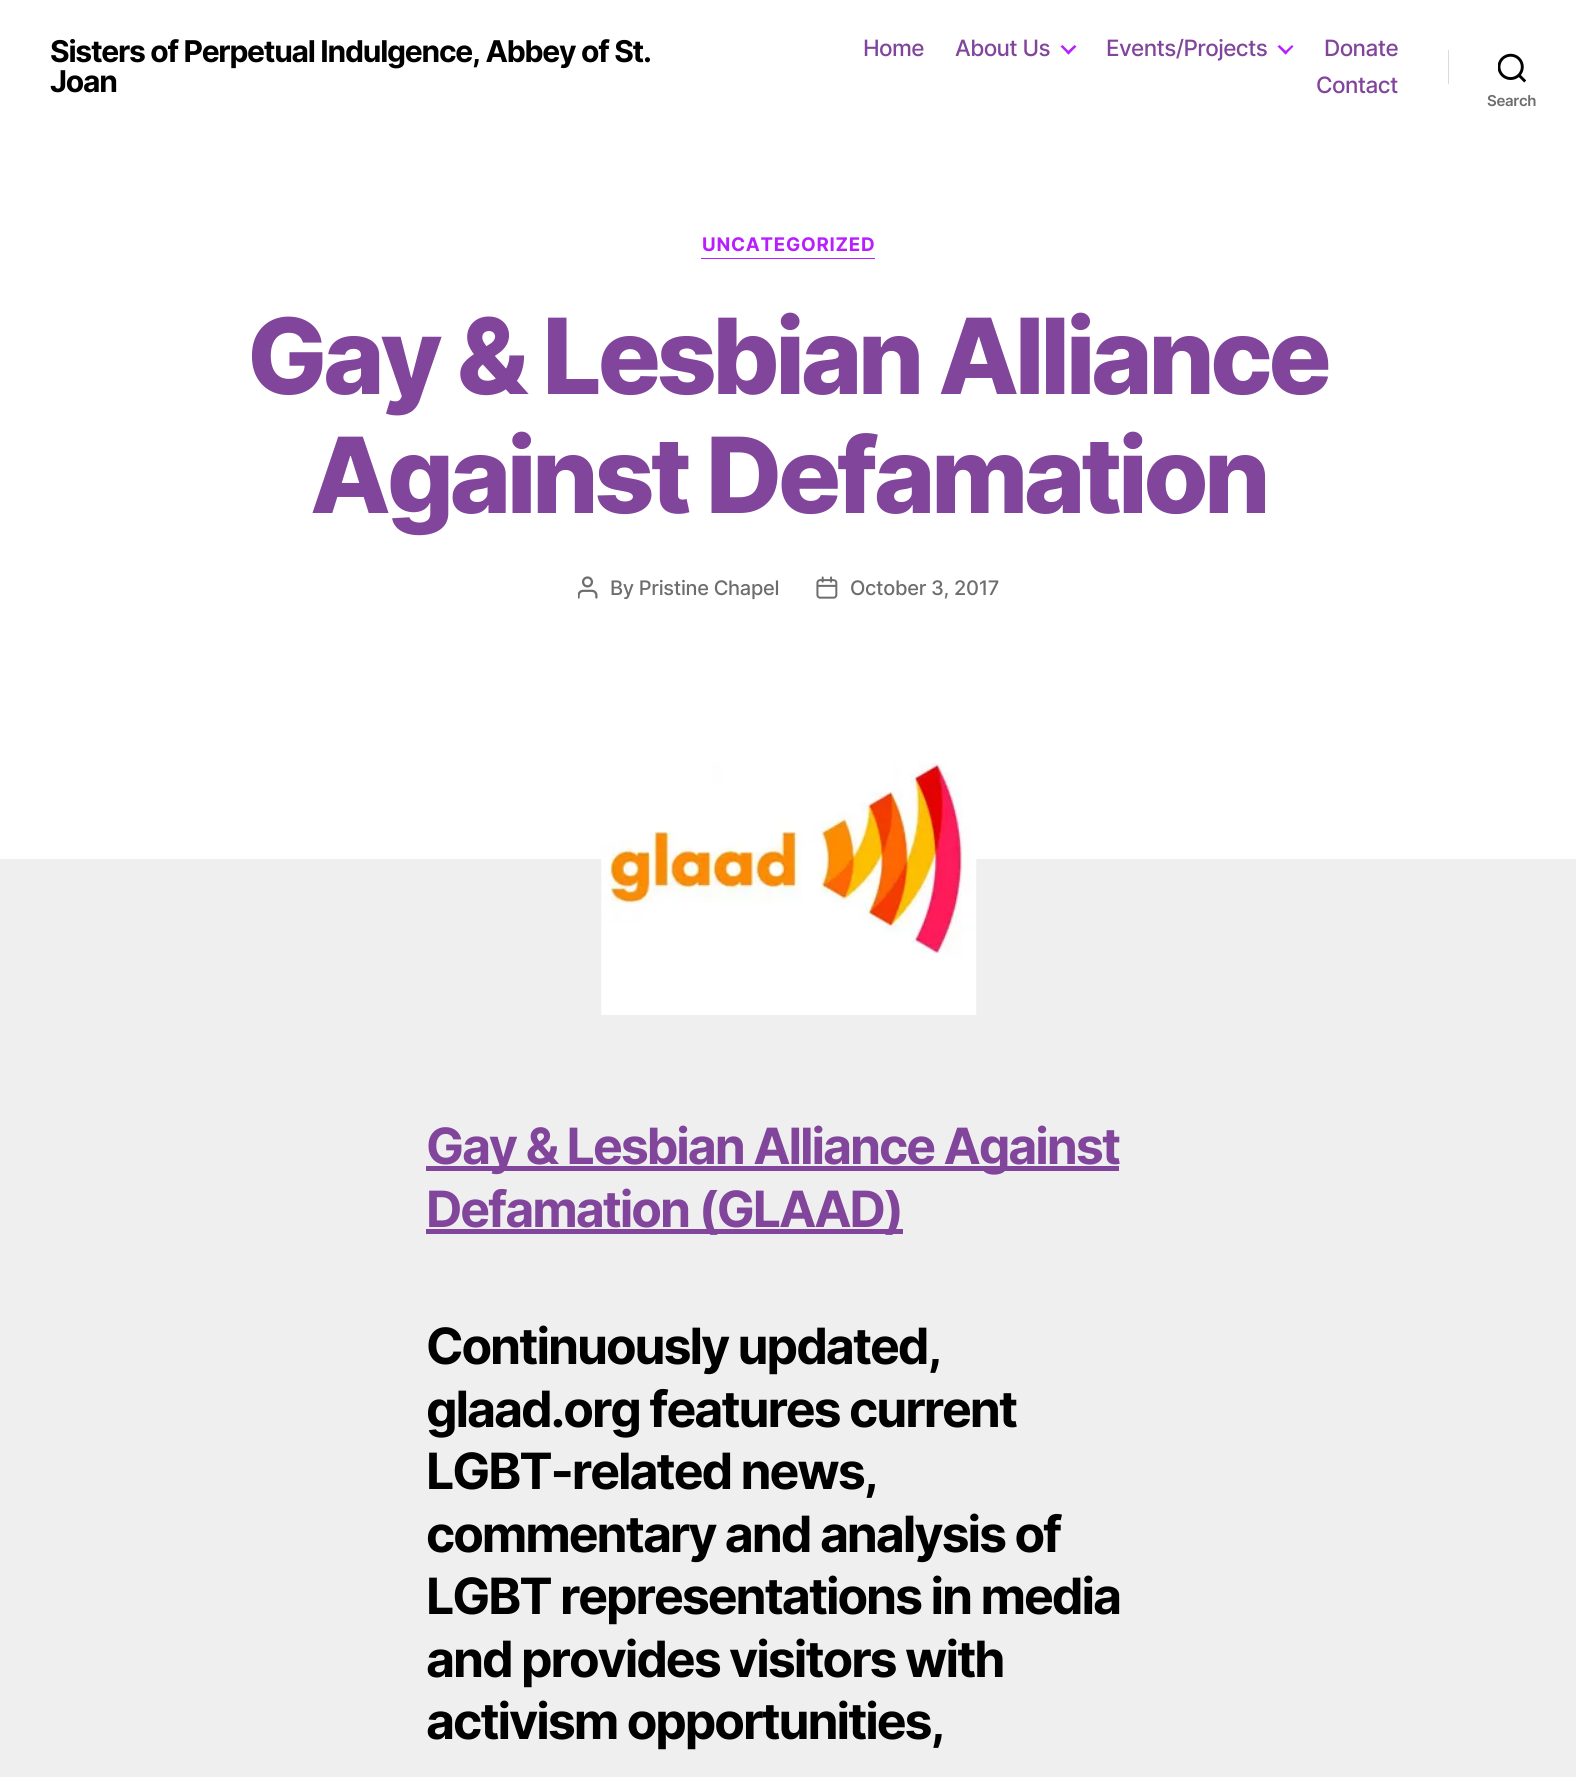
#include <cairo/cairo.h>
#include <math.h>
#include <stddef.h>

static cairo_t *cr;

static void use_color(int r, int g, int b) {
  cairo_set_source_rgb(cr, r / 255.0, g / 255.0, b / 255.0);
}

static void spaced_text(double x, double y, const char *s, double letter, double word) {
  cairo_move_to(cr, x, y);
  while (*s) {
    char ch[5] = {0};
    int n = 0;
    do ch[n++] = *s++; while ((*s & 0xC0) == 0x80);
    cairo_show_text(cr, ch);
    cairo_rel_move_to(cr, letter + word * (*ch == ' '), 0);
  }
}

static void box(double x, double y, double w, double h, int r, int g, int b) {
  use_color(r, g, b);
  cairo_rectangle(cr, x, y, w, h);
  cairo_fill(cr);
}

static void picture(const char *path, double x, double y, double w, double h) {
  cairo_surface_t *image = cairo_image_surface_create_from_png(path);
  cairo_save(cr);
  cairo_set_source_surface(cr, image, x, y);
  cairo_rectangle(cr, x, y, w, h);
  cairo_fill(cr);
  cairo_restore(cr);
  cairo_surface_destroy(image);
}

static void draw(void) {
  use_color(239, 239, 239);
  cairo_paint(cr);
  box(0, 0, 1576, 859, 255, 255, 255);
  use_color(183, 31, 253);
  cairo_new_path(cr);
  cairo_move_to(cr, 1060.5, 46.5);
  cairo_line_to(cr, 1062.5, 45);
  cairo_line_to(cr, 1070, 52.5);
  cairo_line_to(cr, 1068.5, 54.5);
  cairo_close_path(cr);
  cairo_fill(cr);
  cairo_new_path(cr);
  cairo_move_to(cr, 1066.5, 52.5);
  cairo_line_to(cr, 1074.5, 45);
  cairo_line_to(cr, 1076.5, 46.5);
  cairo_line_to(cr, 1068.5, 54.5);
  cairo_close_path(cr);
  cairo_fill(cr);
  cairo_new_path(cr);
  cairo_move_to(cr, 1277.5, 46.5);
  cairo_line_to(cr, 1279.5, 45);
  cairo_line_to(cr, 1287.5, 52.5);
  cairo_line_to(cr, 1285.5, 54.5);
  cairo_close_path(cr);
  cairo_fill(cr);
  cairo_new_path(cr);
  cairo_move_to(cr, 1284, 52.5);
  cairo_line_to(cr, 1292, 45);
  cairo_line_to(cr, 1293.5, 46.5);
  cairo_line_to(cr, 1285.5, 54.5);
  cairo_close_path(cr);
  cairo_fill(cr);
  box(1448, 50, 1, 34, 219, 219, 219);
  picture("img_01.png", 1498, 53, 28, 30);
  box(701, 258, 174, 1, 183, 31, 253);
  picture("img_02.png", 578, 576, 20, 23);
  picture("img_03.png", 816, 576, 22, 23);
  picture("img_04.png", 601, 762, 376, 253);
  box(426, 1166, 693, 5, 129, 69, 155);
  box(426, 1229, 477, 5, 129, 69, 155);
  cairo_select_font_face(cr, "Inter", CAIRO_FONT_SLANT_NORMAL, CAIRO_FONT_WEIGHT_BOLD);
  cairo_set_font_size(cr, 30);
  use_color(0, 0, 0);
  spaced_text(50, 62, "Sisters of Perpetual Indulgence, Abbey of St.", -1.25, 0);
  spaced_text(50, 92, "Joan", -1.25, 0);
  cairo_select_font_face(cr, "Inter Medium", CAIRO_FONT_SLANT_NORMAL, CAIRO_FONT_WEIGHT_NORMAL);
  cairo_set_font_size(cr, 22.5);
  use_color(129, 69, 155);
  spaced_text(863, 56, "Home", -0.6, 0);
  spaced_text(955, 56, "About Us", -0.6, 0);
  spaced_text(1106, 56, "Events/Projects", -0.6, 0);
  spaced_text(1324, 56, "Donate", -0.6, 0);
  spaced_text(1316, 93, "Contact", -0.6, 0);
  cairo_select_font_face(cr, "Inter SemiBold", CAIRO_FONT_SLANT_NORMAL, CAIRO_FONT_WEIGHT_NORMAL);
  cairo_set_font_size(cr, 15);
  use_color(109, 109, 109);
  spaced_text(1487, 106, "Search", -0.3, 0);
  cairo_select_font_face(cr, "Inter", CAIRO_FONT_SLANT_NORMAL, CAIRO_FONT_WEIGHT_BOLD);
  cairo_set_font_size(cr, 18.75);
  use_color(183, 31, 253);
  spaced_text(702, 251, "UNCATEGORIZED", 0.75, 0);
  cairo_select_font_face(cr, "Inter ExtraBold", CAIRO_FONT_SLANT_NORMAL, CAIRO_FONT_WEIGHT_NORMAL);
  cairo_set_font_size(cr, 105);
  use_color(129, 69, 155);
  spaced_text(247, 394, "Gay & Lesbian Alliance", -4.4, 0);
  spaced_text(310, 513, "Against Defamation", -4.4, 0);
  cairo_select_font_face(cr, "Inter Medium", CAIRO_FONT_SLANT_NORMAL, CAIRO_FONT_WEIGHT_NORMAL);
  cairo_set_font_size(cr, 20);
  use_color(109, 109, 109);
  spaced_text(610, 595, "By Pristine Chapel", -0.3, 0);
  spaced_text(850, 595, "October 3, 2017", -0.3, 0);
  cairo_select_font_face(cr, "Inter", CAIRO_FONT_SLANT_NORMAL, CAIRO_FONT_WEIGHT_BOLD);
  cairo_set_font_size(cr, 50);
  use_color(129, 69, 155);
  spaced_text(426, 1164, "Gay & Lesbian Alliance Against", -2.1, 0);
  spaced_text(426, 1227, "Defamation (GLAAD)", -2.1, 0);
  use_color(0, 0, 0);
  spaced_text(426, 1364, "Continuously updated,", -2.1, 0);
  spaced_text(426, 1427, "glaad.org features current", -2.1, 0);
  spaced_text(426, 1489, "LGBT-related news,", -2.1, 0);
  spaced_text(426, 1552, "commentary and analysis of", -2.1, 0);
  spaced_text(426, 1614, "LGBT representations in media", -2.1, 0);
  spaced_text(426, 1677, "and provides visitors with", -2.1, 0);
  spaced_text(426, 1739, "activism opportunities,", -2.1, 0);
}

int main(void) {
  cairo_surface_t *surface = cairo_image_surface_create(CAIRO_FORMAT_RGB24, 1576, 1777);
  cr = cairo_create(surface);
  cairo_font_options_t *options = cairo_font_options_create();
  cairo_font_options_set_hint_metrics(options, CAIRO_HINT_METRICS_OFF);
  cairo_font_options_set_hint_style(options, CAIRO_HINT_STYLE_NONE);
  cairo_set_font_options(cr, options);
  cairo_set_miter_limit(cr, 4);
  draw();
  cairo_surface_write_to_png(surface, "out.png");
  cairo_font_options_destroy(options);
  cairo_destroy(cr);
  cairo_surface_destroy(surface);
  return 0;
}
